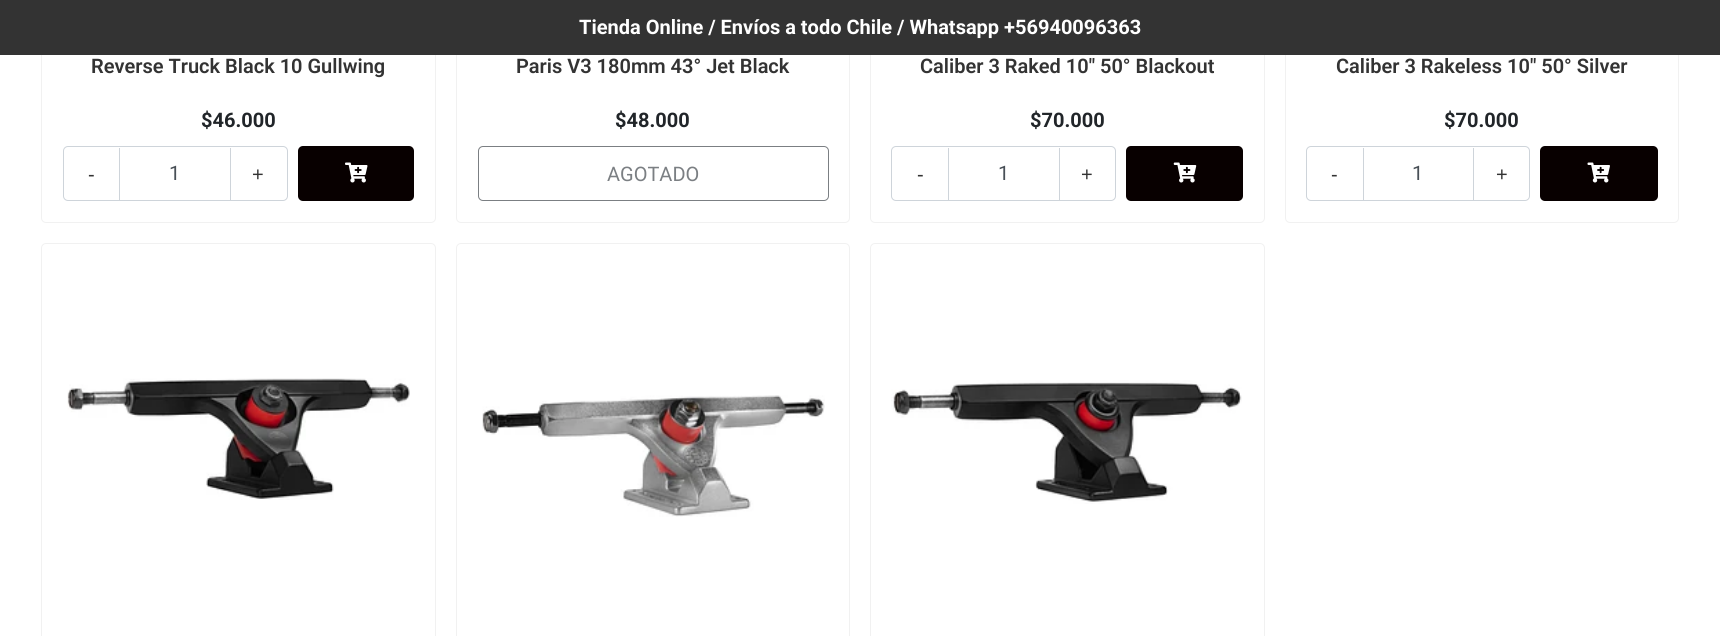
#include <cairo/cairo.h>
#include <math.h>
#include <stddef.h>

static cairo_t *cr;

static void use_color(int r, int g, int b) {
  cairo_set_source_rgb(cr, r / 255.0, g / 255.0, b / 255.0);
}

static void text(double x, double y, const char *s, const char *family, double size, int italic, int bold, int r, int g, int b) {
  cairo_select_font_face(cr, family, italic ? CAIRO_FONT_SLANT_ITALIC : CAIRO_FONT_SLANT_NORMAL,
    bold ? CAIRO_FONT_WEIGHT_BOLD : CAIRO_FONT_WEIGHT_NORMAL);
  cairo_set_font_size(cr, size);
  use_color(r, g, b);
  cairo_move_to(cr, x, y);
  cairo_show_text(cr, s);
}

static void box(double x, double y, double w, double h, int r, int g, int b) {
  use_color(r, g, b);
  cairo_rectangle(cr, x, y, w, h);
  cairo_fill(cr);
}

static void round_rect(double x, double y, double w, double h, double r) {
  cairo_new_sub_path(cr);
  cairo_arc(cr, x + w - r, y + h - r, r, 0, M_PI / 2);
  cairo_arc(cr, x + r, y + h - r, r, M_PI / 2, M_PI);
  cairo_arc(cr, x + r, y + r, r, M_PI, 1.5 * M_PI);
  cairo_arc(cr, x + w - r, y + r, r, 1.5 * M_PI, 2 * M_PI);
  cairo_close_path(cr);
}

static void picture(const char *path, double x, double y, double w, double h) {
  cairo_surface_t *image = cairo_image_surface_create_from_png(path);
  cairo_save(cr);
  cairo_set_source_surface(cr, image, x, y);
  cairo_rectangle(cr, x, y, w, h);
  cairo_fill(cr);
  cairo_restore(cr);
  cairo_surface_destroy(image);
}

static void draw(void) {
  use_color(255, 255, 255);
  cairo_paint(cr);
  round_rect(41.5, -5.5, 394, 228, 4.5);
  use_color(241, 241, 241);
  cairo_set_line_width(cr, 1);
  cairo_stroke(cr);
  round_rect(456.5, -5.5, 393, 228, 4.5);
  cairo_stroke(cr);
  round_rect(870.5, -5.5, 394, 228, 4.5);
  cairo_stroke(cr);
  round_rect(1285.5, -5.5, 393, 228, 4.5);
  cairo_stroke(cr);
  box(0, 0, 1720, 55, 51, 51, 51);
  round_rect(63.5, 146.5, 224, 54, 4.5);
  use_color(206, 212, 218);
  cairo_stroke(cr);
  box(119, 148, 1, 52, 206, 212, 218);
  box(230, 148, 1, 52, 206, 212, 218);
  use_color(8, 0, 0);
  round_rect(298, 146, 116, 55, 5);
  cairo_fill(cr);
  picture("img_01.png", 345, 162, 23, 21);
  round_rect(478.5, 146.5, 350, 54, 4.5);
  use_color(123, 127, 131);
  cairo_stroke(cr);
  round_rect(891.5, 146.5, 224, 54, 4.5);
  use_color(206, 212, 218);
  cairo_stroke(cr);
  box(948, 148, 1, 52, 206, 212, 218);
  box(1059, 148, 1, 52, 206, 212, 218);
  use_color(8, 0, 0);
  round_rect(1126, 146, 117, 55, 5);
  cairo_fill(cr);
  picture("img_02.png", 1173, 162, 24, 21);
  round_rect(1306.5, 146.5, 223, 54, 4.5);
  use_color(206, 212, 218);
  cairo_stroke(cr);
  box(1363, 148, 1, 52, 206, 212, 218);
  box(1473, 148, 1, 52, 206, 212, 218);
  use_color(8, 0, 0);
  round_rect(1540, 146, 118, 55, 5);
  cairo_fill(cr);
  picture("img_03.png", 1587, 162, 23, 21);
  round_rect(41.5, 243.5, 394, 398, 4.5);
  use_color(241, 241, 241);
  cairo_stroke(cr);
  picture("img_04.png", 67, 378, 343, 122);
  round_rect(456.5, 243.5, 393, 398, 4.5);
  cairo_stroke(cr);
  picture("img_05.png", 482, 395, 343, 122);
  round_rect(870.5, 243.5, 394, 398, 4.5);
  cairo_stroke(cr);
  picture("img_06.png", 891, 380, 351, 124);
  text(579, 34, "Tienda Online / Envíos a todo Chile / Whatsapp +56940096363", "Roboto", 20, 0, 1, 255, 255, 255);
  text(91, 73, "Reverse Truck Black 10 Gullwing", "Roboto SemiBold", 20, 0, 0, 51, 51, 51);
  text(201, 127, "$46.000", "Roboto", 20, 0, 1, 33, 37, 41);
  text(169, 180, "1", "Roboto", 20, 0, 0, 73, 80, 87);
  text(88, 181, "-", "Liberation Sans", 20, 0, 0, 51, 51, 51);
  text(252, 181, "+", "Liberation Sans", 20, 0, 0, 51, 51, 51);
  text(516, 73, "Paris V3 180mm 43° Jet Black", "Roboto SemiBold", 20, 0, 0, 51, 51, 51);
  text(615, 127, "$48.000", "Roboto", 20, 0, 1, 33, 37, 41);
  text(607, 181, "AGOTADO", "Roboto", 20, 0, 0, 123, 127, 131);
  text(920, 73, "Caliber 3 Raked 10\" 50° Blackout", "Roboto SemiBold", 20, 0, 0, 51, 51, 51);
  text(1030, 127, "$70.000", "Roboto", 20, 0, 1, 33, 37, 41);
  text(998, 180, "1", "Roboto", 20, 0, 0, 73, 80, 87);
  text(917, 181, "-", "Liberation Sans", 20, 0, 0, 51, 51, 51);
  text(1081, 181, "+", "Liberation Sans", 20, 0, 0, 51, 51, 51);
  text(1336, 73, "Caliber 3 Rakeless 10\" 50° Silver", "Roboto SemiBold", 20, 0, 0, 51, 51, 51);
  text(1444, 127, "$70.000", "Roboto", 20, 0, 1, 33, 37, 41);
  text(1412, 180, "1", "Roboto", 20, 0, 0, 73, 80, 87);
  text(1331, 181, "-", "Liberation Sans", 20, 0, 0, 51, 51, 51);
  text(1496, 181, "+", "Liberation Sans", 20, 0, 0, 51, 51, 51);
}

int main(void) {
  cairo_surface_t *surface = cairo_image_surface_create(CAIRO_FORMAT_RGB24, 1720, 636);
  cr = cairo_create(surface);
  cairo_font_options_t *options = cairo_font_options_create();
  cairo_font_options_set_hint_metrics(options, CAIRO_HINT_METRICS_OFF);
  cairo_font_options_set_hint_style(options, CAIRO_HINT_STYLE_NONE);
  cairo_set_font_options(cr, options);
  cairo_set_miter_limit(cr, 4);
  draw();
  cairo_surface_write_to_png(surface, "out.png");
  cairo_font_options_destroy(options);
  cairo_destroy(cr);
  cairo_surface_destroy(surface);
  return 0;
}
